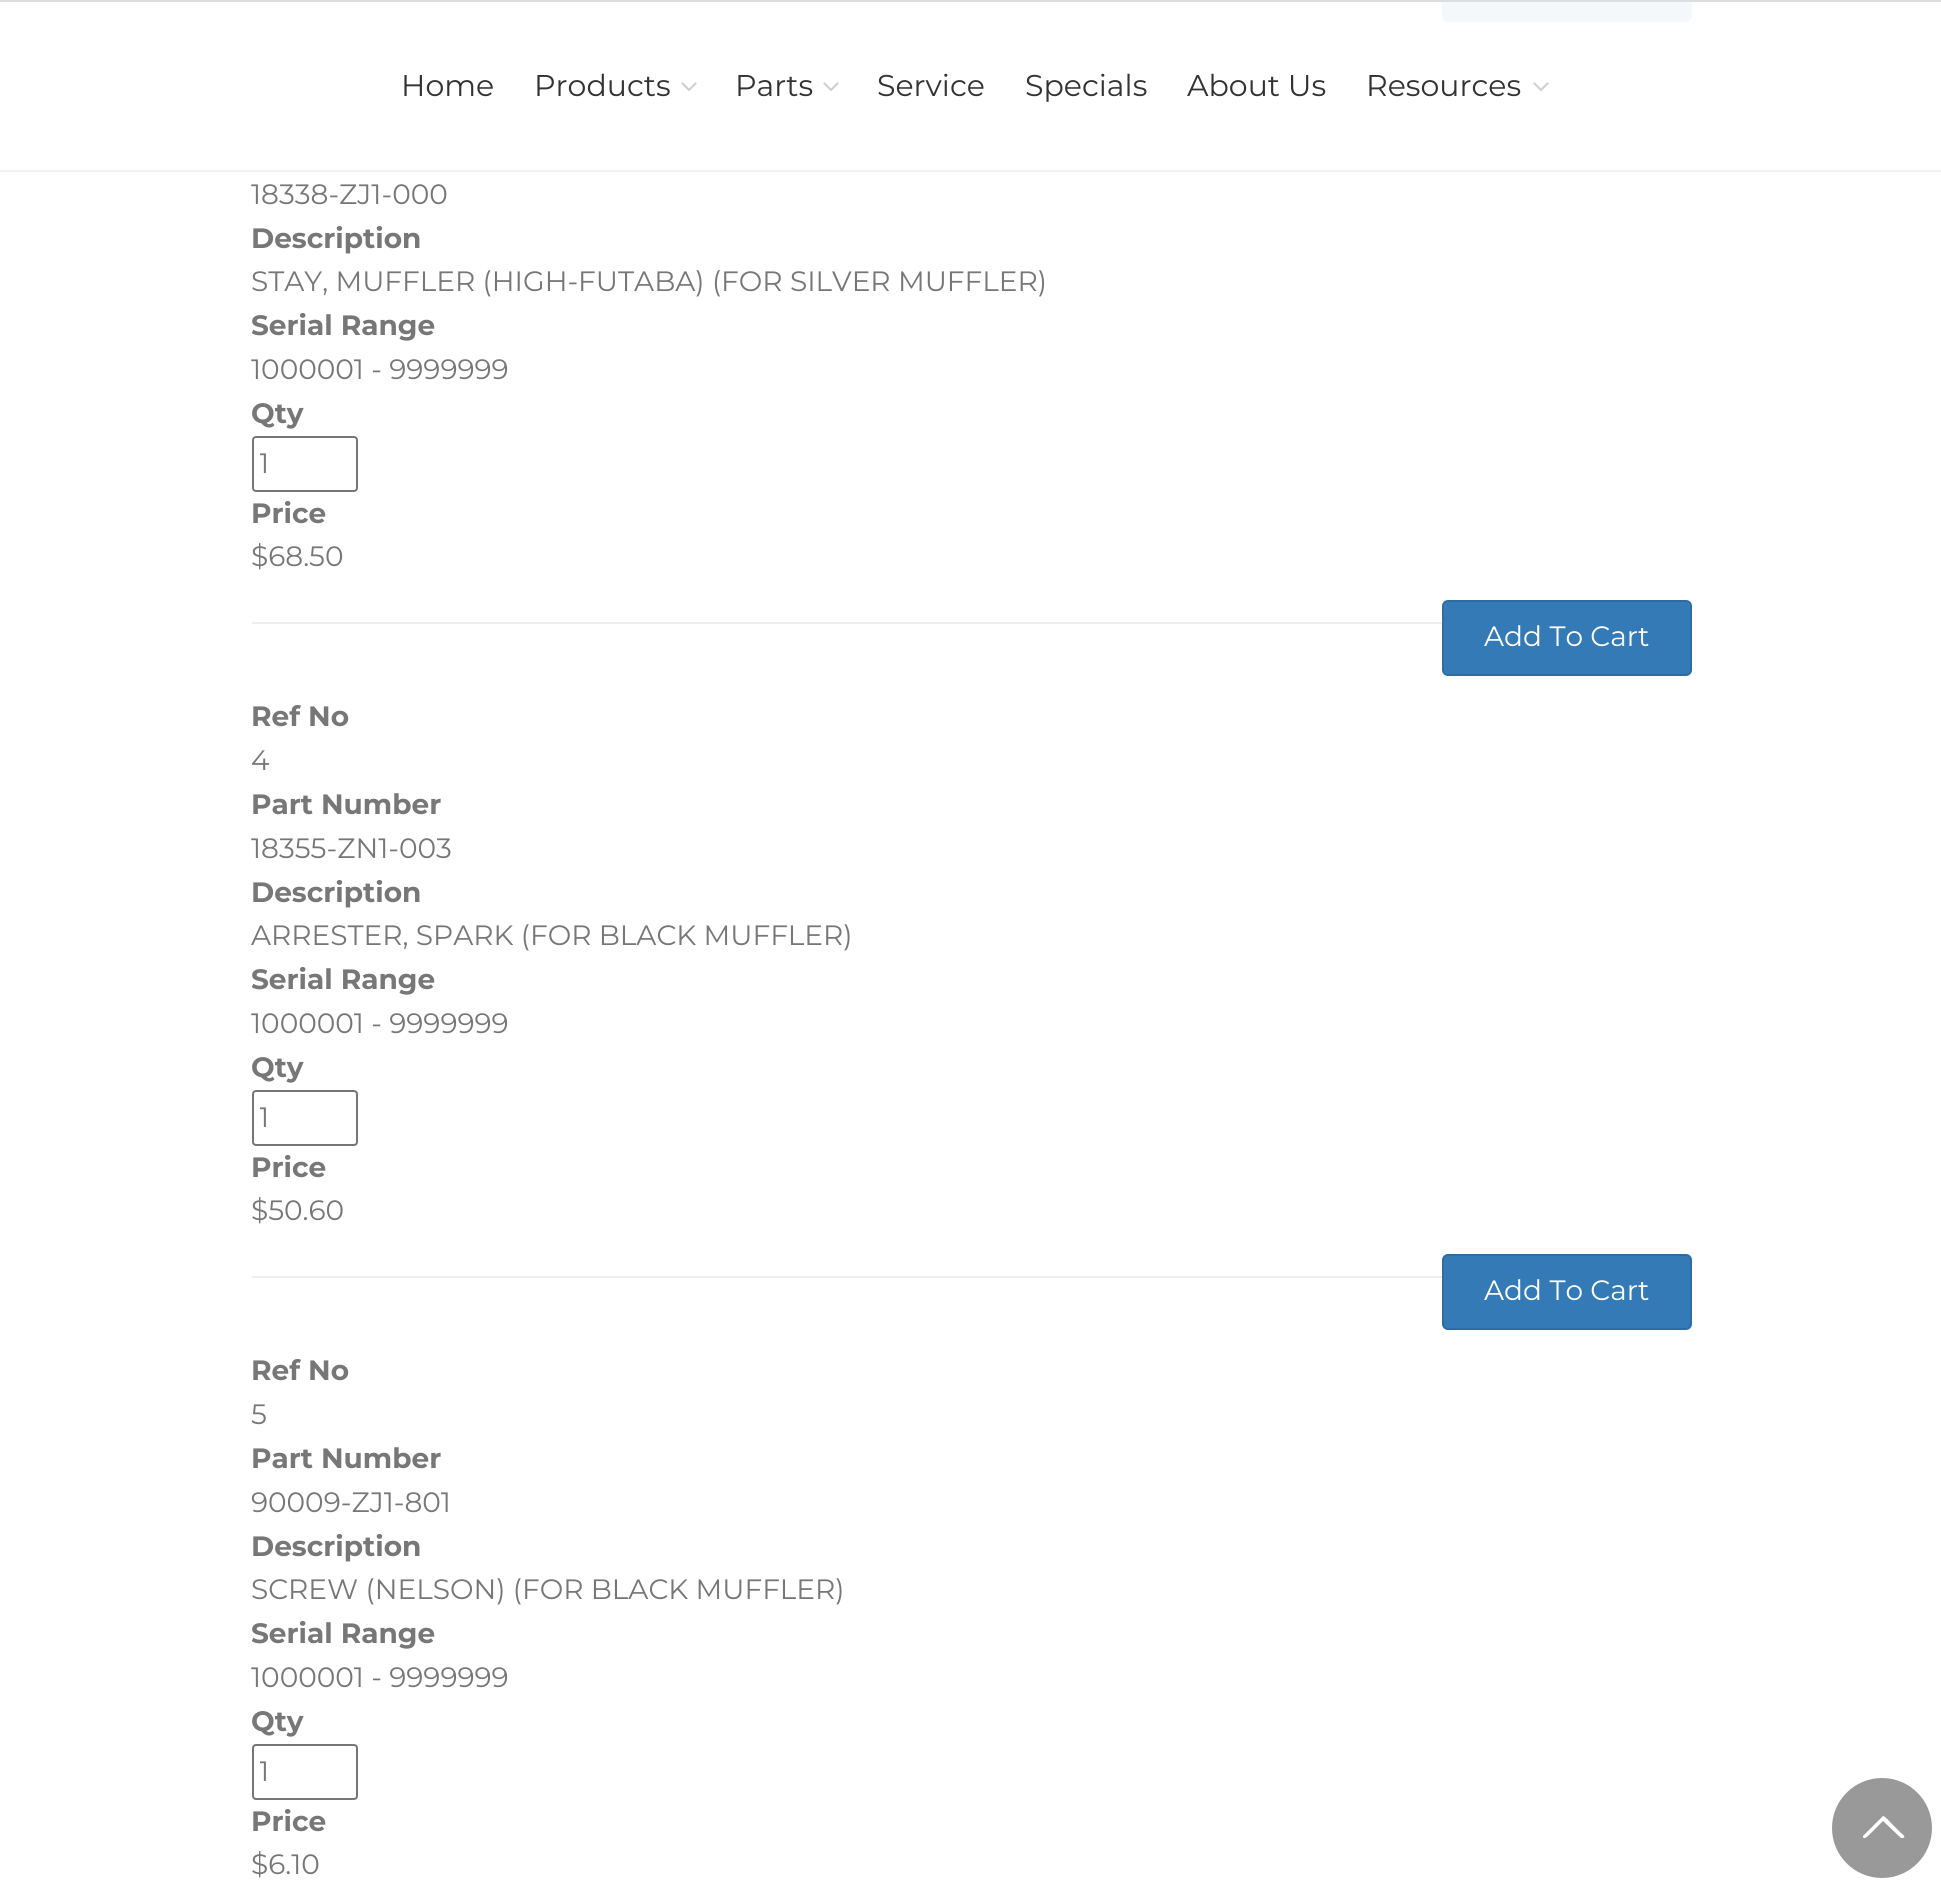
#include <cairo/cairo.h>
#include <math.h>
#include <stddef.h>

static cairo_t *cr;

static void use_color(int r, int g, int b) {
  cairo_set_source_rgb(cr, r / 255.0, g / 255.0, b / 255.0);
}

static void text(double x, double y, const char *s, const char *family, double size, int italic, int bold, int r, int g, int b) {
  cairo_select_font_face(cr, family, italic ? CAIRO_FONT_SLANT_ITALIC : CAIRO_FONT_SLANT_NORMAL,
    bold ? CAIRO_FONT_WEIGHT_BOLD : CAIRO_FONT_WEIGHT_NORMAL);
  cairo_set_font_size(cr, size);
  use_color(r, g, b);
  cairo_move_to(cr, x, y);
  cairo_show_text(cr, s);
}

static void box(double x, double y, double w, double h, int r, int g, int b) {
  use_color(r, g, b);
  cairo_rectangle(cr, x, y, w, h);
  cairo_fill(cr);
}

static void round_rect(double x, double y, double w, double h, double r) {
  cairo_new_sub_path(cr);
  cairo_arc(cr, x + w - r, y + h - r, r, 0, M_PI / 2);
  cairo_arc(cr, x + r, y + h - r, r, M_PI / 2, M_PI);
  cairo_arc(cr, x + r, y + r, r, M_PI, 1.5 * M_PI);
  cairo_arc(cr, x + w - r, y + r, r, 1.5 * M_PI, 2 * M_PI);
  cairo_close_path(cr);
}

static void picture(const char *path, double x, double y, double w, double h) {
  cairo_surface_t *image = cairo_image_surface_create_from_png(path);
  cairo_save(cr);
  cairo_set_source_surface(cr, image, x, y);
  cairo_rectangle(cr, x, y, w, h);
  cairo_fill(cr);
  cairo_restore(cr);
  cairo_surface_destroy(image);
}

static void draw(void) {
  use_color(255, 255, 255);
  cairo_paint(cr);
  use_color(245, 248, 251);
  round_rect(1442, -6, 250, 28, 6);
  cairo_fill(cr);
  box(0, 0, 1941, 2, 221, 221, 221);
  box(0, 170, 1941, 2, 241, 241, 241);
  picture("img_01.png", 681, 82, 16, 9);
  picture("img_01.png", 823, 82, 16, 9);
  picture("img_01.png", 1533, 82, 16, 9);
  round_rect(253, 437, 104, 54, 3);
  use_color(118, 118, 118);
  cairo_stroke(cr);
  box(252, 622, 1190, 2, 238, 238, 238);
  use_color(51, 122, 183);
  round_rect(1443, 601, 248, 74, 5);
  cairo_fill_preserve(cr);
  use_color(46, 109, 164);
  cairo_stroke(cr);
  round_rect(253, 1091, 104, 54, 3);
  use_color(118, 118, 118);
  cairo_stroke(cr);
  box(252, 1276, 1190, 2, 238, 238, 238);
  use_color(51, 122, 183);
  round_rect(1443, 1255, 248, 74, 5);
  cairo_fill_preserve(cr);
  use_color(46, 109, 164);
  cairo_stroke(cr);
  round_rect(253, 1745, 104, 54, 3);
  use_color(118, 118, 118);
  cairo_stroke(cr);
  use_color(153, 153, 153);
  cairo_arc(cr, 1882, 1828, 50, 0, 2 * M_PI);
  cairo_fill(cr);
  use_color(255, 255, 255);
  cairo_new_path(cr);
  cairo_move_to(cr, 1901, 1838);
  cairo_line_to(cr, 1883, 1821);
  cairo_line_to(cr, 1869, 1835);
  cairo_curve_to(cr, 1868, 1836, 1864, 1840, 1863, 1837);
  cairo_line_to(cr, 1863, 1836);
  cairo_line_to(cr, 1883, 1816);
  cairo_curve_to(cr, 1885, 1816, 1890, 1822, 1891, 1823);
  cairo_line_to(cr, 1900, 1832);
  cairo_curve_to(cr, 1901, 1833, 1907, 1837, 1903, 1838);
  cairo_close_path(cr);
  cairo_fill(cr);
  text(401, 96, "Home", "Montserrat", 30, 0, 0, 51, 51, 51);
  text(534, 96, "Products", "Montserrat", 30, 0, 0, 51, 51, 51);
  text(735, 96, "Parts", "Montserrat", 30, 0, 0, 51, 51, 51);
  text(877, 96, "Service", "Montserrat", 30, 0, 0, 51, 51, 51);
  text(1025, 96, "Specials", "Montserrat", 30, 0, 0, 51, 51, 51);
  text(1187, 96, "About Us", "Montserrat", 30, 0, 0, 51, 51, 51);
  text(1366, 96, "Resources", "Montserrat", 30, 0, 0, 51, 51, 51);
  text(251, 204, "18338-ZJ1-000", "Montserrat", 28, 0, 0, 119, 119, 119);
  text(251, 248, "Description", "Montserrat", 28, 0, 1, 119, 119, 119);
  text(251, 291, "STAY, MUFFLER (HIGH-FUTABA) (FOR SILVER MUFFLER)", "Montserrat", 28, 0, 0, 119, 119, 119);
  text(251, 335, "Serial Range", "Montserrat", 28, 0, 1, 119, 119, 119);
  text(251, 379, "1000001 - 9999999", "Montserrat", 28, 0, 0, 119, 119, 119);
  text(251, 423, "Qty", "Montserrat", 28, 0, 1, 119, 119, 119);
  cairo_save(cr);
  cairo_rectangle(cr, 260, 442, 90, 44);
  cairo_clip(cr);
  text(259, 473, "1", "Montserrat", 28, 0, 0, 119, 119, 119);
  cairo_restore(cr);
  text(251, 523, "Price", "Montserrat", 28, 0, 1, 119, 119, 119);
  text(251, 566, "$68.50", "Montserrat", 28, 0, 0, 119, 119, 119);
  text(1484, 646, "Add To Cart", "Montserrat", 28, 0, 0, 255, 255, 255);
  text(251, 726, "Ref No", "Montserrat", 28, 0, 1, 119, 119, 119);
  text(251, 770, "4", "Montserrat", 28, 0, 0, 119, 119, 119);
  text(251, 814, "Part Number", "Montserrat", 28, 0, 1, 119, 119, 119);
  text(251, 858, "18355-ZN1-003", "Montserrat", 28, 0, 0, 119, 119, 119);
  text(251, 902, "Description", "Montserrat", 28, 0, 1, 119, 119, 119);
  text(251, 945, "ARRESTER, SPARK (FOR BLACK MUFFLER)", "Montserrat", 28, 0, 0, 119, 119, 119);
  text(251, 989, "Serial Range", "Montserrat", 28, 0, 1, 119, 119, 119);
  text(251, 1033, "1000001 - 9999999", "Montserrat", 28, 0, 0, 119, 119, 119);
  text(251, 1077, "Qty", "Montserrat", 28, 0, 1, 119, 119, 119);
  cairo_save(cr);
  cairo_rectangle(cr, 260, 1096, 90, 44);
  cairo_clip(cr);
  text(259, 1127, "1", "Montserrat", 28, 0, 0, 119, 119, 119);
  cairo_restore(cr);
  text(251, 1177, "Price", "Montserrat", 28, 0, 1, 119, 119, 119);
  text(251, 1220, "$50.60", "Montserrat", 28, 0, 0, 119, 119, 119);
  text(1484, 1300, "Add To Cart", "Montserrat", 28, 0, 0, 255, 255, 255);
  text(251, 1380, "Ref No", "Montserrat", 28, 0, 1, 119, 119, 119);
  text(251, 1424, "5", "Montserrat", 28, 0, 0, 119, 119, 119);
  text(251, 1468, "Part Number", "Montserrat", 28, 0, 1, 119, 119, 119);
  text(251, 1512, "90009-ZJ1-801", "Montserrat", 28, 0, 0, 119, 119, 119);
  text(251, 1556, "Description", "Montserrat", 28, 0, 1, 119, 119, 119);
  text(251, 1599, "SCREW (NELSON) (FOR BLACK MUFFLER)", "Montserrat", 28, 0, 0, 119, 119, 119);
  text(251, 1643, "Serial Range", "Montserrat", 28, 0, 1, 119, 119, 119);
  text(251, 1687, "1000001 - 9999999", "Montserrat", 28, 0, 0, 119, 119, 119);
  text(251, 1731, "Qty", "Montserrat", 28, 0, 1, 119, 119, 119);
  cairo_save(cr);
  cairo_rectangle(cr, 260, 1750, 90, 44);
  cairo_clip(cr);
  text(259, 1781, "1", "Montserrat", 28, 0, 0, 119, 119, 119);
  cairo_restore(cr);
  text(251, 1831, "Price", "Montserrat", 28, 0, 1, 119, 119, 119);
  text(251, 1874, "$6.10", "Montserrat", 28, 0, 0, 119, 119, 119);
}

int main(void) {
  cairo_surface_t *surface = cairo_image_surface_create(CAIRO_FORMAT_RGB24, 1941, 1888);
  cr = cairo_create(surface);
  cairo_font_options_t *options = cairo_font_options_create();
  cairo_font_options_set_hint_metrics(options, CAIRO_HINT_METRICS_OFF);
  cairo_font_options_set_hint_style(options, CAIRO_HINT_STYLE_NONE);
  cairo_set_font_options(cr, options);
  cairo_set_miter_limit(cr, 4);
  draw();
  cairo_surface_write_to_png(surface, "out.png");
  cairo_font_options_destroy(options);
  cairo_destroy(cr);
  cairo_surface_destroy(surface);
  return 0;
}
